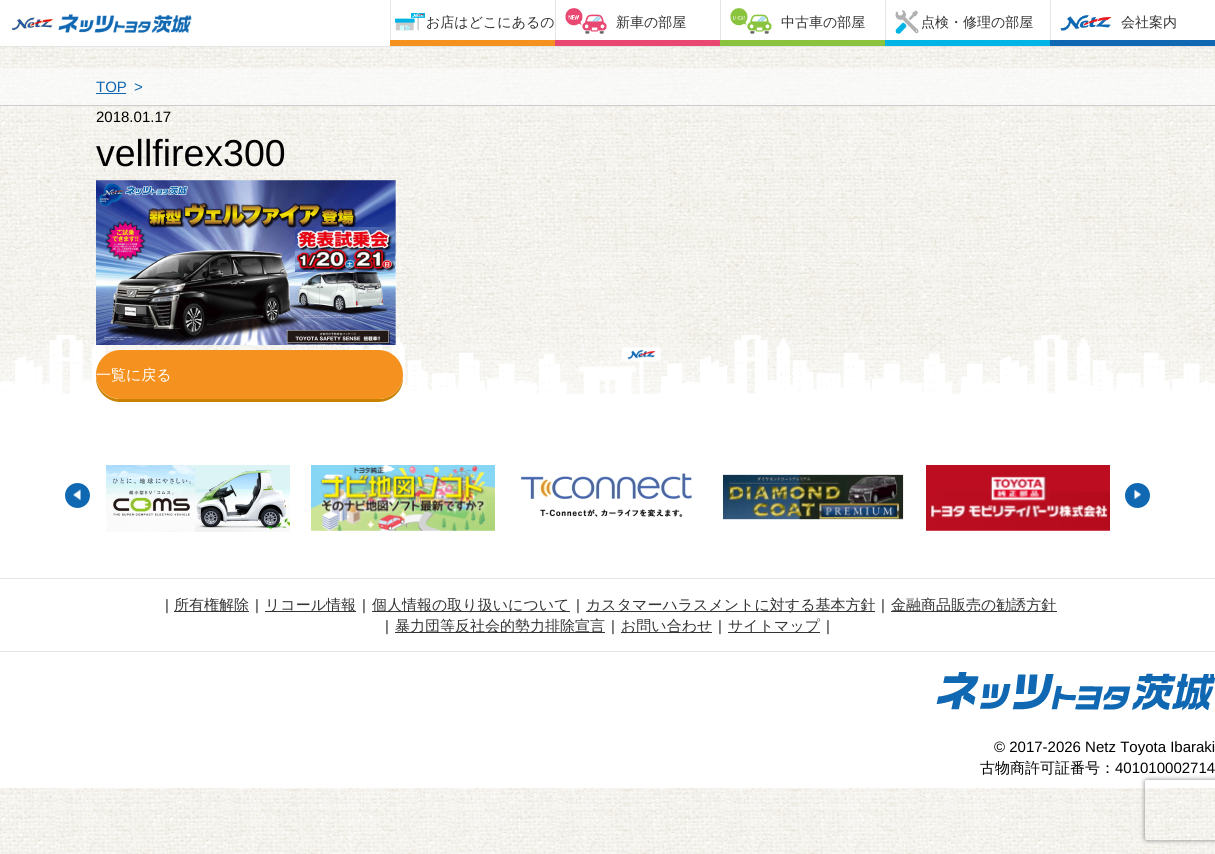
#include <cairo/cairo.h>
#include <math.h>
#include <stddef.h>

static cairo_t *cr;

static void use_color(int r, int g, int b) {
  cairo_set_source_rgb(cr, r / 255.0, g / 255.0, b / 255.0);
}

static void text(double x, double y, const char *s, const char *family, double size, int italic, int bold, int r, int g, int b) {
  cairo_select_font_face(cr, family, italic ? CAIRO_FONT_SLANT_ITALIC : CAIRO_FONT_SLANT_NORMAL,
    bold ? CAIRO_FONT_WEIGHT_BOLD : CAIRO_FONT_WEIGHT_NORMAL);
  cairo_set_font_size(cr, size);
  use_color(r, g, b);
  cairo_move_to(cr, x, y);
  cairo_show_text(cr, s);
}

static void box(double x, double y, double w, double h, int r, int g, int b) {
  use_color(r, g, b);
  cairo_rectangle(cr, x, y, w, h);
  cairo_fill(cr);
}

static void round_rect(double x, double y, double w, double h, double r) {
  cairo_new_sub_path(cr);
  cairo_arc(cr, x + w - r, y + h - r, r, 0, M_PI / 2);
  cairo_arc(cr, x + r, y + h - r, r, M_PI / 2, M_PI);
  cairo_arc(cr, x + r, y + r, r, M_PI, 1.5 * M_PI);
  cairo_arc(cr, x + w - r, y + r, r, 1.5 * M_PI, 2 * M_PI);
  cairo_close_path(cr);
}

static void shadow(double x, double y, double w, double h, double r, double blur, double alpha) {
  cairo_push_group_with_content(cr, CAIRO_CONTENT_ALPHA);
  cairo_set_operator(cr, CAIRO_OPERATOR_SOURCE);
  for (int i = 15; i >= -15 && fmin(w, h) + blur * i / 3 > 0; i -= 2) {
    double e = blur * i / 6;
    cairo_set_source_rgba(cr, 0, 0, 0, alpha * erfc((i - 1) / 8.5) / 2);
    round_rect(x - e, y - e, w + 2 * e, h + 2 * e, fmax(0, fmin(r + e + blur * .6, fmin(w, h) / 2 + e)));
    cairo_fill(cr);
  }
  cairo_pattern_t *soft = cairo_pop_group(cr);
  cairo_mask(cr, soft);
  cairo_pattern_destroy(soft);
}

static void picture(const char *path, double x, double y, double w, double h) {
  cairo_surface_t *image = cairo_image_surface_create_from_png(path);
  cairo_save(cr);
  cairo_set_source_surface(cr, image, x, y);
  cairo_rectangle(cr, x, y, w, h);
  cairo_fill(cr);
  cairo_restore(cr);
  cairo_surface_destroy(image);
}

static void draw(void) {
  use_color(255, 255, 255);
  cairo_paint(cr);
  picture("img_01.png", 0, 47, 1215, 807);
  picture("img_02.png", 11, 14, 181, 19);
  picture("img_03.png", 395, 13, 30, 18);
  box(390, 40, 165, 6, 245, 145, 30);
  box(390, 0, 1, 40, 228, 228, 228);
  picture("img_04.png", 565, 8, 42, 26);
  box(555, 40, 165, 6, 231, 71, 112);
  box(555, 0, 1, 40, 228, 228, 228);
  picture("img_05.png", 730, 8, 42, 26);
  box(720, 40, 165, 6, 138, 196, 63);
  box(720, 0, 1, 40, 228, 228, 228);
  picture("img_06.png", 895, 10, 24, 24);
  box(885, 40, 165, 6, 0, 181, 229);
  box(885, 0, 1, 40, 228, 228, 228);
  picture("img_07.png", 1060, 15, 52, 16);
  box(1050, 40, 165, 6, 15, 104, 177);
  box(1050, 0, 1, 40, 228, 228, 228);
  box(0, 46, 1215, 1, 228, 228, 228);
  cairo_set_source_rgba(cr, 0.988, 0.988, 0.988, 0.66);
  cairo_rectangle(cr, 0, 68, 1215, 37);
  cairo_fill(cr);
  box(0, 105, 1215, 1, 204, 204, 204);
  box(96, 93, 30, 1, 15, 104, 177);
  picture("img_09.png", 0, 335, 1215, 59);
  picture("img_08.png", 96, 180, 300, 165);
  box(0, 394, 1215, 394, 255, 255, 255);
  use_color(201, 130, 0);
  cairo_new_path(cr);
  cairo_move_to(cr, 96, 376);
  cairo_line_to(cr, 96, 378);
  cairo_curve_to(cr, 96, 391, 107, 402, 120, 402);
  cairo_line_to(cr, 378, 402);
  cairo_curve_to(cr, 392, 402, 403, 391, 403, 378);
  cairo_line_to(cr, 403, 376);
  cairo_curve_to(cr, 402, 389, 392, 399, 378, 399);
  cairo_line_to(cr, 120, 399);
  cairo_curve_to(cr, 107, 399, 97, 389, 96, 376);
  cairo_close_path(cr);
  cairo_fill(cr);
  use_color(245, 145, 30);
  round_rect(96, 350, 307, 49, 24.5);
  cairo_fill(cr);
  use_color(15, 104, 177);
  cairo_arc(cr, 77.5, 495.5, 12.5, 0, 2 * M_PI);
  cairo_fill(cr);
  picture("img_10.png", 73, 489, 8, 12);
  picture("img_11.png", 106, 465, 184, 67);
  picture("img_12.png", 311, 465, 184, 66);
  picture("img_13.png", 520, 473, 173, 44);
  picture("img_14.png", 722, 474, 182, 46);
  picture("img_15.png", 926, 465, 184, 66);
  cairo_arc(cr, 1137.5, 495.5, 12.5, 0, 2 * M_PI);
  cairo_fill(cr);
  picture("img_16.png", 1134, 489, 7, 11);
  box(0, 578, 1215, 1, 228, 228, 228);
  box(0, 651, 1215, 1, 228, 228, 228);
  box(174, 611, 75, 1, 51, 51, 51);
  box(265, 611, 91, 1, 51, 51, 51);
  box(372, 611, 198, 1, 51, 51, 51);
  box(586, 611, 289, 1, 51, 51, 51);
  box(891, 611, 166, 1, 51, 51, 51);
  box(395, 632, 210, 1, 51, 51, 51);
  box(621, 632, 91, 1, 51, 51, 51);
  box(728, 632, 92, 1, 51, 51, 51);
  picture("img_17.png", 936, 672, 279, 38);
  cairo_save(cr);
  cairo_set_fill_rule(cr, CAIRO_FILL_RULE_EVEN_ODD);
  cairo_new_path(cr);
  cairo_move_to(cr, 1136, 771);
  cairo_line_to(cr, 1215, 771);
  cairo_line_to(cr, 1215, 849);
  cairo_line_to(cr, 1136, 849);
  cairo_close_path(cr);
  cairo_move_to(cr, 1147, 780);
  cairo_line_to(cr, 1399, 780);
  cairo_curve_to(cr, 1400, 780, 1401, 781, 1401, 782);
  cairo_line_to(cr, 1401, 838);
  cairo_curve_to(cr, 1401, 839, 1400, 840, 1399, 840);
  cairo_line_to(cr, 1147, 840);
  cairo_curve_to(cr, 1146, 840, 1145, 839, 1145, 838);
  cairo_line_to(cr, 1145, 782);
  cairo_curve_to(cr, 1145, 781, 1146, 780, 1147, 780);
  cairo_close_path(cr);
  cairo_clip(cr);
  use_color(128, 128, 128);
  shadow(1145, 780, 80, 60, 2, 2.5, 1);
  cairo_restore(cr);
  text(426, 27, "お店はどこにあるの", "WenQuanYi Zen Hei Medium", 14, 0, 0, 51, 51, 51);
  text(616, 27, "新車の部屋", "WenQuanYi Zen Hei Medium", 14, 0, 0, 51, 51, 51);
  text(781, 27, "中古車の部屋", "WenQuanYi Zen Hei Medium", 14, 0, 0, 51, 51, 51);
  text(921, 27, "点検・修理の部屋", "WenQuanYi Zen Hei Medium", 14, 0, 0, 51, 51, 51);
  text(1121, 27, "会社案内", "WenQuanYi Zen Hei Medium", 14, 0, 0, 51, 51, 51);
  text(96, 92, "TOP", "Liberation Sans", 15, 0, 0, 15, 104, 177);
  text(134, 92, ">", "Liberation Sans", 15, 0, 0, 15, 104, 177);
  text(96, 122, "2018.01.17", "Liberation Sans", 15, 0, 0, 0, 0, 0);
  text(96, 166, "vellfirex300", "Liberation Sans", 37.5, 0, 0, 0, 0, 0);
  text(96, 380, "一覧に戻る", "WenQuanYi Zen Hei Medium", 15, 0, 0, 255, 255, 255);
  text(165, 610, "|", "Liberation Sans", 15, 0, 0, 51, 51, 51);
  text(174, 610, "所有権解除", "WenQuanYi Zen Hei Medium", 15, 0, 0, 51, 51, 51);
  text(255, 610, "|", "Liberation Sans", 15, 0, 0, 51, 51, 51);
  text(265, 610, "リコール情報", "WenQuanYi Zen Hei Medium", 15, 0, 0, 51, 51, 51);
  text(362, 610, "|", "Liberation Sans", 15, 0, 0, 51, 51, 51);
  text(372, 610, "個人情報の取り扱いについて", "WenQuanYi Zen Hei Medium", 15, 0, 0, 51, 51, 51);
  text(576, 610, "|", "Liberation Sans", 15, 0, 0, 51, 51, 51);
  text(586, 610, "カスタマーハラスメントに対する基本方針", "WenQuanYi Zen Hei Medium", 15, 0, 0, 51, 51, 51);
  text(881, 610, "|", "Liberation Sans", 15, 0, 0, 51, 51, 51);
  text(891, 610, "金融商品販売の勧誘方針", "WenQuanYi Zen Hei Medium", 15, 0, 0, 51, 51, 51);
  text(385, 631, "|", "Liberation Sans", 15, 0, 0, 51, 51, 51);
  text(395, 631, "暴力団等反社会的勢力排除宣言", "WenQuanYi Zen Hei Medium", 15, 0, 0, 51, 51, 51);
  text(611, 631, "|", "Liberation Sans", 15, 0, 0, 51, 51, 51);
  text(621, 631, "お問い合わせ", "WenQuanYi Zen Hei Medium", 15, 0, 0, 51, 51, 51);
  text(718, 631, "|", "Liberation Sans", 15, 0, 0, 51, 51, 51);
  text(728, 631, "サイトマップ", "WenQuanYi Zen Hei Medium", 15, 0, 0, 51, 51, 51);
  text(826, 631, "|", "Liberation Sans", 15, 0, 0, 51, 51, 51);
  text(994, 752, "© 2017-2026 Netz Toyota Ibaraki", "Liberation Sans", 15, 0, 0, 0, 0, 0);
  text(980, 773, "古物商許可証番号：", "WenQuanYi Zen Hei Medium", 15, 0, 0, 0, 0, 0);
  text(1115, 773, "401010002714", "Liberation Sans", 15, 0, 0, 0, 0, 0);
}

int main(void) {
  cairo_surface_t *surface = cairo_image_surface_create(CAIRO_FORMAT_RGB24, 1215, 854);
  cr = cairo_create(surface);
  cairo_font_options_t *options = cairo_font_options_create();
  cairo_font_options_set_hint_metrics(options, CAIRO_HINT_METRICS_OFF);
  cairo_font_options_set_hint_style(options, CAIRO_HINT_STYLE_NONE);
  cairo_set_font_options(cr, options);
  cairo_set_miter_limit(cr, 4);
  draw();
  cairo_surface_write_to_png(surface, "out.png");
  cairo_font_options_destroy(options);
  cairo_destroy(cr);
  cairo_surface_destroy(surface);
  return 0;
}
